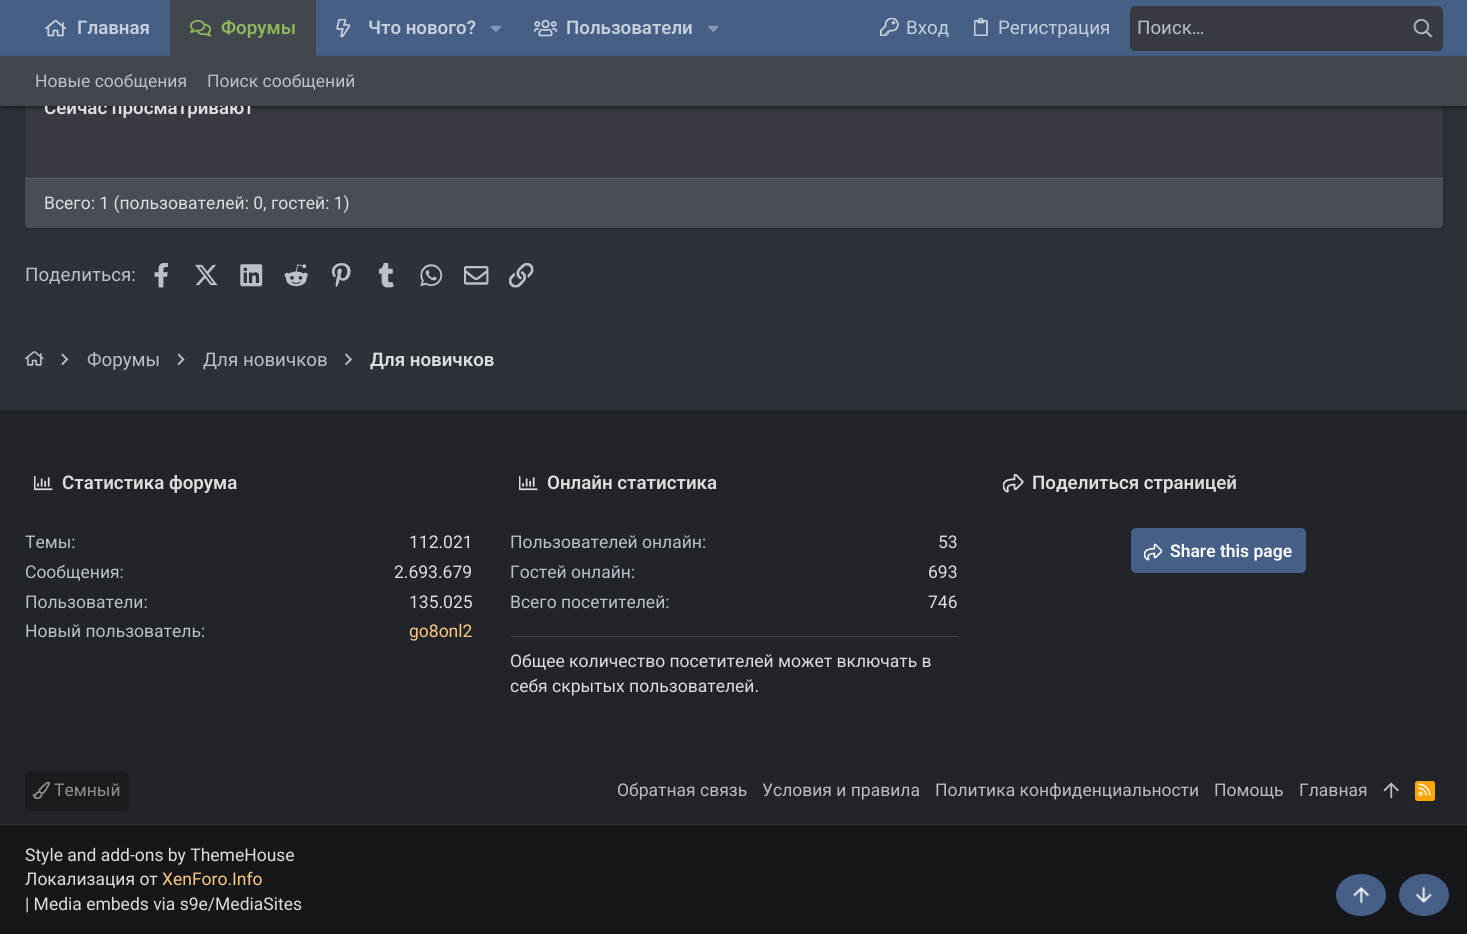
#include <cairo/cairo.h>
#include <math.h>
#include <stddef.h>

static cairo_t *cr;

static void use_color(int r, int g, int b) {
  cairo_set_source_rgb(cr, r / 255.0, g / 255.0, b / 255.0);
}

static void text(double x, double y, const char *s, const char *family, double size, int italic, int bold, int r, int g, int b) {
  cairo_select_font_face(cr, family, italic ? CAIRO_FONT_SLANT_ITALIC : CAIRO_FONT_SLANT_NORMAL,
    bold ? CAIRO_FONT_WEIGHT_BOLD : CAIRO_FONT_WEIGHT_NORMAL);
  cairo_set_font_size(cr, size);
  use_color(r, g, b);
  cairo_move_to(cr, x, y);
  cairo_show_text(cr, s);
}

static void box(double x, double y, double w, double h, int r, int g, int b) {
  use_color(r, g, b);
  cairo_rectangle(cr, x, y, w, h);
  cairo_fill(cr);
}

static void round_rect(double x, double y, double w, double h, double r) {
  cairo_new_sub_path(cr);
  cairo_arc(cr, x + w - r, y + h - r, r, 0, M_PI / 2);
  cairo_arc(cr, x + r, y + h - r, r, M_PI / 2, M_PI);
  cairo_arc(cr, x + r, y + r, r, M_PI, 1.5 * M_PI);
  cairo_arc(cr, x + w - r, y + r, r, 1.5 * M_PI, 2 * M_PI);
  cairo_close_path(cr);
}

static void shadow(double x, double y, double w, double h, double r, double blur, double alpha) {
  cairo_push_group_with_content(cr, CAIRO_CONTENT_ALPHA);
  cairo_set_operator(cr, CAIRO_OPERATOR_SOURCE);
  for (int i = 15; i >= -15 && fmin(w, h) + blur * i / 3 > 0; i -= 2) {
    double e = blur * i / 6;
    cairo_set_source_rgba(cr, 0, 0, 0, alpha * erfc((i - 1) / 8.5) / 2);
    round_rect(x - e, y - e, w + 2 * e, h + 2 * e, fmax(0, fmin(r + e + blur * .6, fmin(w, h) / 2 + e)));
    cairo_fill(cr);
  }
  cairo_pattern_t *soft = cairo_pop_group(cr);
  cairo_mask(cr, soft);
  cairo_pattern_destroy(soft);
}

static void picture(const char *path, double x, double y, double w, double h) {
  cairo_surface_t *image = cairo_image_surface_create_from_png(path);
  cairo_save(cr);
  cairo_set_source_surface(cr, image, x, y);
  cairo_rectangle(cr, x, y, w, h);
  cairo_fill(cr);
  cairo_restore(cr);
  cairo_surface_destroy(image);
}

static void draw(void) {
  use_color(45, 50, 56);
  cairo_paint(cr);
  box(0, 0, 1467, 56, 69, 95, 135);
  picture("img_01.png", 45, 19, 21, 18);
  use_color(0, 0, 0);
  shadow(25, 78, 1418, 151, 5, 3, 0.2);
  use_color(56, 60, 66);
  round_rect(25, 76, 1418, 152, 5);
  cairo_fill(cr);
  use_color(0, 0, 0);
  shadow(0, 58, 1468, 50, 0, 3, 0.2);
  shadow(0, 59, 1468, 50, 0, 1, 0.14);
  box(170, 0, 146, 56, 66, 70, 77);
  picture("img_02.png", 190, 19, 21, 18);
  picture("img_03.png", 336, 19, 14, 19);
  picture("img_04.png", 490, 25, 12, 7);
  picture("img_05.png", 534, 19, 24, 18);
  picture("img_06.png", 708, 25, 11, 7);
  picture("img_07.png", 880, 18, 19, 18);
  picture("img_08.png", 974, 18, 14, 18);
  use_color(56, 60, 66);
  round_rect(1130, 6, 313, 45, 5);
  cairo_fill(cr);
  picture("img_09.png", 1413, 19, 20, 19);
  use_color(0, 0, 0);
  shadow(3, 63, 1462, 45, 0, 0.5, 0.12);
  use_color(72, 77, 86);
  cairo_new_path(cr);
  cairo_move_to(cr, 25, 178);
  cairo_line_to(cr, 1443, 178);
  cairo_line_to(cr, 1443, 224);
  cairo_curve_to(cr, 1443, 226, 1441, 228, 1439, 228);
  cairo_line_to(cr, 29, 228);
  cairo_curve_to(cr, 27, 228, 25, 226, 25, 224);
  cairo_close_path(cr);
  cairo_fill(cr);
  box(25, 178, 1418, 1, 94, 98, 106);
  picture("img_10.png", 154, 263, 14, 25);
  picture("img_11.png", 195, 264, 23, 22);
  picture("img_12.png", 240, 264, 23, 23);
  picture("img_13.png", 284, 264, 24, 23);
  picture("img_14.png", 331, 263, 20, 25);
  picture("img_15.png", 378, 263, 16, 25);
  picture("img_16.png", 420, 264, 23, 23);
  picture("img_17.png", 464, 266, 25, 19);
  picture("img_18.png", 509, 263, 25, 25);
  picture("img_19.png", 25, 351, 19, 15);
  picture("img_20.png", 61, 353, 8, 13);
  picture("img_21.png", 178, 353, 7, 13);
  picture("img_22.png", 345, 353, 7, 13);
  box(0, 410, 1467, 414, 33, 36, 40);
  picture("img_23.png", 34, 476, 19, 15);
  picture("img_23.png", 519, 476, 19, 15);
  box(510, 636, 448, 1, 60, 62, 66);
  picture("img_24.png", 1003, 474, 21, 19);
  use_color(69, 95, 135);
  round_rect(1131, 528, 175, 45, 5);
  cairo_fill(cr);
  picture("img_25.png", 1144, 543, 19, 18);
  use_color(26, 29, 32);
  round_rect(25, 771, 104, 40, 5);
  cairo_fill(cr);
  picture("img_26.png", 32, 781, 18, 18);
  picture("img_27.png", 1383, 782, 16, 16);
  use_color(255, 165, 0);
  round_rect(1415, 781, 20, 20, 2.5);
  cairo_fill(cr);
  picture("img_28.png", 1418, 783, 13, 13);
  box(0, 825, 1467, 109, 21, 23, 26);
  box(0, 824, 1467, 1, 49, 51, 53);
  use_color(69, 95, 135);
  cairo_new_path(cr);
  cairo_move_to(cr, 1361, 874);
  cairo_curve_to(cr, 1375, 874, 1386, 883.5, 1386, 895);
  cairo_curve_to(cr, 1386, 906.5, 1375, 916, 1361, 916);
  cairo_curve_to(cr, 1347, 916, 1336, 906.5, 1336, 895);
  cairo_curve_to(cr, 1336, 883.5, 1347, 874, 1361, 874);
  cairo_close_path(cr);
  cairo_fill(cr);
  picture("img_29.png", 1353, 887, 17, 17);
  cairo_new_path(cr);
  cairo_move_to(cr, 1424, 874);
  cairo_curve_to(cr, 1438, 874, 1449, 883.5, 1449, 895);
  cairo_curve_to(cr, 1449, 906.5, 1438, 916, 1424, 916);
  cairo_curve_to(cr, 1410, 916, 1399, 906.5, 1399, 895);
  cairo_curve_to(cr, 1399, 883.5, 1410, 874, 1424, 874);
  cairo_close_path(cr);
  cairo_fill(cr);
  picture("img_30.png", 1415, 887, 17, 17);
  text(77, 34, "Главная", "Roboto SemiBold", 18.75, 0, 0, 199, 207, 219);
  text(221, 34, "Форумы", "Roboto SemiBold", 18.75, 0, 0, 141, 183, 92);
  text(368, 34, "Что нового?", "Roboto SemiBold", 18.75, 0, 0, 199, 207, 219);
  text(566, 34, "Пользователи", "Roboto SemiBold", 18.75, 0, 0, 199, 207, 219);
  text(906, 34, "Вход", "Roboto", 18.75, 0, 0, 199, 207, 219);
  text(998, 34, "Регистрация", "Roboto", 18.75, 0, 0, 199, 207, 219);
  text(1137, 34, "Поиск…", "Roboto", 18.75, 0, 0, 188, 192, 199);
  text(44, 114, "Сейчас просматривают", "Roboto SemiBold", 18.75, 0, 0, 221, 222, 223);
  box(0, 56, 1467, 50, 66, 70, 77);
  text(207, 87, "Поиск сообщений", "Roboto", 17.5, 0, 0, 188, 192, 199);
  text(35, 87, "Новые сообщения", "Roboto", 17.5, 0, 0, 188, 192, 199);
  text(44, 209, "Всего: 1 (пользователей: 0, гостей: 1)", "Roboto", 17.5, 0, 0, 221, 222, 223);
  text(25, 281, "Поделиться:", "Roboto", 18.75, 0, 0, 188, 192, 199);
  text(87, 366, "Форумы", "Roboto", 18.75, 0, 0, 188, 192, 199);
  text(203, 366, "Для новичков", "Roboto", 18.75, 0, 0, 188, 192, 199);
  text(370, 366, "Для новичков", "Roboto SemiBold", 18.75, 0, 0, 221, 222, 223);
  text(62, 489, "Статистика форума", "Roboto SemiBold", 18.75, 0, 0, 221, 222, 223);
  text(25, 548, "Темы:", "Roboto", 17.5, 0, 0, 188, 192, 199);
  text(409, 548, "112.021", "Roboto", 17.5, 0, 0, 221, 222, 223);
  text(25, 578, "Сообщения:", "Roboto", 17.5, 0, 0, 188, 192, 199);
  text(394, 578, "2.693.679", "Roboto", 17.5, 0, 0, 221, 222, 223);
  text(25, 608, "Пользователи:", "Roboto", 17.5, 0, 0, 188, 192, 199);
  text(409, 608, "135.025", "Roboto", 17.5, 0, 0, 221, 222, 223);
  text(25, 637, "Новый пользователь:", "Roboto", 17.5, 0, 0, 188, 192, 199);
  text(409, 637, "go8onl2", "Roboto", 17.5, 0, 0, 255, 200, 128);
  text(547, 489, "Онлайн статистика", "Roboto SemiBold", 18.75, 0, 0, 221, 222, 223);
  text(510, 548, "Пользователей онлайн:", "Roboto", 17.5, 0, 0, 188, 192, 199);
  text(938, 548, "53", "Roboto", 17.5, 0, 0, 221, 222, 223);
  text(510, 578, "Гостей онлайн:", "Roboto", 17.5, 0, 0, 188, 192, 199);
  text(928, 578, "693", "Roboto", 17.5, 0, 0, 221, 222, 223);
  text(510, 608, "Всего посетителей:", "Roboto", 17.5, 0, 0, 188, 192, 199);
  text(928, 608, "746", "Roboto", 17.5, 0, 0, 221, 222, 223);
  text(510, 667, "Общее количество посетителей может включать в", "Roboto", 17.5, 0, 0, 221, 222, 223);
  text(510, 692, "себя скрытых пользователей.", "Roboto", 17.5, 0, 0, 221, 222, 223);
  text(1032, 489, "Поделиться страницей", "Roboto SemiBold", 18.75, 0, 0, 221, 222, 223);
  text(1170, 557, "Share this page", "Roboto SemiBold", 17.5, 0, 0, 255, 255, 255);
  text(54, 796, "Темный", "Roboto", 17.5, 0, 0, 141, 142, 144);
  text(617, 796, "Обратная связь", "Roboto", 17.5, 0, 0, 188, 189, 191);
  text(762, 796, "Условия и правила", "Roboto", 17.5, 0, 0, 188, 189, 191);
  text(935, 796, "Политика конфиденциальности", "Roboto", 17.5, 0, 0, 188, 189, 191);
  text(1214, 796, "Помощь", "Roboto", 17.5, 0, 0, 188, 189, 191);
  text(1299, 796, "Главная", "Roboto", 17.5, 0, 0, 188, 189, 191);
  text(25, 861, "Style and add-ons by ThemeHouse", "Roboto", 17.5, 0, 0, 221, 222, 223);
  text(25, 885, "Локализация от", "Roboto", 17.5, 0, 0, 221, 222, 223);
  text(162, 885, "XenForo.Info", "Roboto", 17.5, 0, 0, 255, 200, 128);
  text(25, 910, "| Media embeds via s9e/MediaSites", "Roboto", 17.5, 0, 0, 221, 222, 223);
}

int main(void) {
  cairo_surface_t *surface = cairo_image_surface_create(CAIRO_FORMAT_RGB24, 1467, 934);
  cr = cairo_create(surface);
  cairo_font_options_t *options = cairo_font_options_create();
  cairo_font_options_set_hint_metrics(options, CAIRO_HINT_METRICS_OFF);
  cairo_font_options_set_hint_style(options, CAIRO_HINT_STYLE_NONE);
  cairo_set_font_options(cr, options);
  cairo_set_miter_limit(cr, 4);
  draw();
  cairo_surface_write_to_png(surface, "out.png");
  cairo_font_options_destroy(options);
  cairo_destroy(cr);
  cairo_surface_destroy(surface);
  return 0;
}
